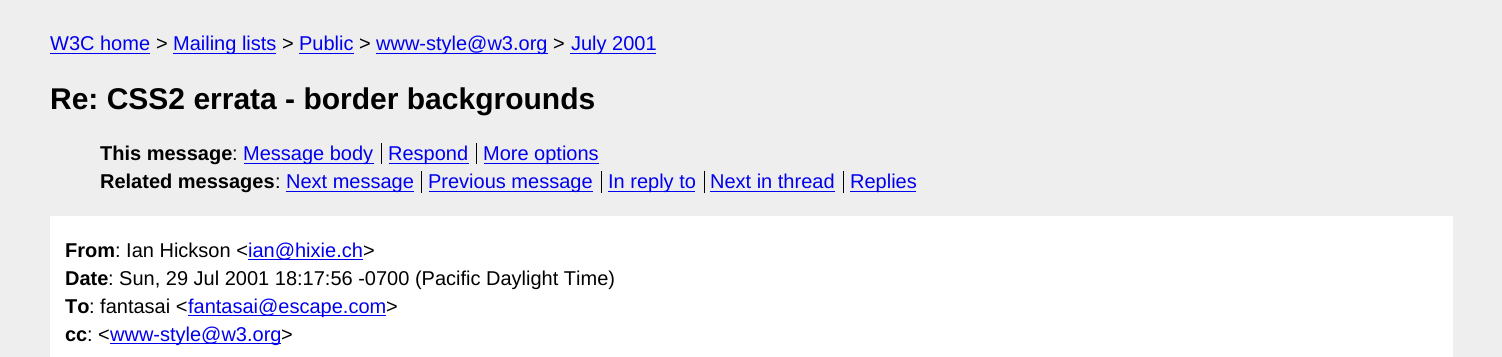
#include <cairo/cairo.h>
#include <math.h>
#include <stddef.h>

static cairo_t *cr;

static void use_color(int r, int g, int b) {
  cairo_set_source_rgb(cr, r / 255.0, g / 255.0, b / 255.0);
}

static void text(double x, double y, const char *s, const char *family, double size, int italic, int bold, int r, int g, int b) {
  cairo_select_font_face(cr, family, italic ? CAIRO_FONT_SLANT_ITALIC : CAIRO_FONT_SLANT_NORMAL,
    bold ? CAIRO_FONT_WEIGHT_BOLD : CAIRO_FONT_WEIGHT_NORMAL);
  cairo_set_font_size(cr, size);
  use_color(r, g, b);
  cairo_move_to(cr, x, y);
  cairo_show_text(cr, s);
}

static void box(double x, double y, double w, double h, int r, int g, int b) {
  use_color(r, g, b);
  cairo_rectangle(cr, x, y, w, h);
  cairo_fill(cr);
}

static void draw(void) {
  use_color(238, 238, 238);
  cairo_paint(cr);
  box(50, 53, 100, 1, 0, 0, 238);
  box(173, 53, 103, 1, 0, 0, 238);
  box(299, 53, 55, 1, 0, 0, 238);
  box(376, 53, 172, 1, 0, 0, 238);
  box(570, 53, 86, 1, 0, 0, 238);
  box(381, 143, 1, 21, 0, 0, 0);
  box(244, 163, 130, 1, 0, 0, 238);
  box(389, 163, 80, 1, 0, 0, 238);
  box(476, 143, 1, 21, 0, 0, 0);
  box(484, 163, 115, 1, 0, 0, 238);
  box(286, 191, 128, 1, 0, 0, 238);
  box(421, 171, 1, 22, 0, 0, 0);
  box(429, 191, 164, 1, 0, 0, 238);
  box(601, 171, 1, 22, 0, 0, 0);
  box(608, 191, 87, 1, 0, 0, 238);
  box(704, 171, 1, 22, 0, 0, 0);
  box(710, 191, 125, 1, 0, 0, 238);
  box(843, 171, 1, 22, 0, 0, 0);
  box(850, 191, 66, 1, 0, 0, 238);
  box(50, 216, 1403, 141, 255, 255, 255);
  box(248, 259, 115, 1, 0, 0, 238);
  box(188, 315, 198, 1, 0, 0, 238);
  box(110, 343, 171, 1, 0, 0, 238);
  text(50, 50, "W3C home", "Liberation Sans", 20, 0, 0, 0, 0, 238);
  text(156, 50, ">", "Liberation Sans", 20, 0, 0, 0, 0, 0);
  text(173, 50, "Mailing lists", "Liberation Sans", 20, 0, 0, 0, 0, 238);
  text(282, 50, ">", "Liberation Sans", 20, 0, 0, 0, 0, 0);
  text(299, 50, "Public", "Liberation Sans", 20, 0, 0, 0, 0, 238);
  text(359, 50, ">", "Liberation Sans", 20, 0, 0, 0, 0, 0);
  text(376, 50, "www-style@w3.org", "Liberation Sans", 20, 0, 0, 0, 0, 238);
  text(553, 50, ">", "Liberation Sans", 20, 0, 0, 0, 0, 0);
  text(571, 50, "July 2001", "Liberation Sans", 20, 0, 0, 0, 0, 238);
  text(50, 109, "Re: CSS2 errata - border backgrounds", "Liberation Sans", 30, 0, 1, 0, 0, 0);
  text(100, 160, "This message", "Liberation Sans", 20, 0, 1, 0, 0, 0);
  text(232, 160, ":", "Liberation Sans", 20, 0, 0, 0, 0, 0);
  text(243, 160, "Message body", "Liberation Sans", 20, 0, 0, 0, 0, 238);
  text(388, 160, "Respond", "Liberation Sans", 20, 0, 0, 0, 0, 238);
  text(483, 160, "More options", "Liberation Sans", 20, 0, 0, 0, 0, 238);
  text(100, 188, "Related messages", "Liberation Sans", 20, 0, 1, 0, 0, 0);
  text(275, 188, ":", "Liberation Sans", 20, 0, 0, 0, 0, 0);
  text(286, 188, "Next message", "Liberation Sans", 20, 0, 0, 0, 0, 238);
  text(428, 188, "Previous message", "Liberation Sans", 20, 0, 0, 0, 0, 238);
  text(608, 188, "In reply to", "Liberation Sans", 20, 0, 0, 0, 0, 238);
  text(710, 188, "Next in thread", "Liberation Sans", 20, 0, 0, 0, 0, 238);
  text(850, 188, "Replies", "Liberation Sans", 20, 0, 0, 0, 0, 238);
  text(65, 257, "From", "Liberation Sans", 20, 0, 1, 0, 0, 0);
  text(115, 257, ": Ian Hickson <", "Liberation Sans", 20, 0, 0, 0, 0, 0);
  text(248, 257, "ian@hixie.ch", "Liberation Sans", 20, 0, 0, 0, 0, 238);
  text(363, 257, ">", "Liberation Sans", 20, 0, 0, 0, 0, 0);
  text(65, 285, "Date", "Liberation Sans", 20, 0, 1, 0, 0, 0);
  text(108, 285, ": Sun, 29 Jul 2001 18:17:56 -0700 (Pacific Daylight Time)", "Liberation Sans", 20, 0, 0, 0, 0, 0);
  text(65, 313, "To", "Liberation Sans", 20, 0, 1, 0, 0, 0);
  text(89, 313, ": fantasai <", "Liberation Sans", 20, 0, 0, 0, 0, 0);
  text(188, 313, "fantasai@escape.com", "Liberation Sans", 20, 0, 0, 0, 0, 238);
  text(386, 313, ">", "Liberation Sans", 20, 0, 0, 0, 0, 0);
  text(65, 341, "cc", "Liberation Sans", 20, 0, 1, 0, 0, 0);
  text(87, 341, ": <", "Liberation Sans", 20, 0, 0, 0, 0, 0);
  text(110, 341, "www-style@w3.org", "Liberation Sans", 20, 0, 0, 0, 0, 238);
  text(281, 341, ">", "Liberation Sans", 20, 0, 0, 0, 0, 0);
}

int main(void) {
  cairo_surface_t *surface = cairo_image_surface_create(CAIRO_FORMAT_RGB24, 1502, 357);
  cr = cairo_create(surface);
  cairo_font_options_t *options = cairo_font_options_create();
  cairo_font_options_set_hint_metrics(options, CAIRO_HINT_METRICS_OFF);
  cairo_font_options_set_hint_style(options, CAIRO_HINT_STYLE_NONE);
  cairo_set_font_options(cr, options);
  cairo_set_miter_limit(cr, 4);
  draw();
  cairo_surface_write_to_png(surface, "out.png");
  cairo_font_options_destroy(options);
  cairo_destroy(cr);
  cairo_surface_destroy(surface);
  return 0;
}
